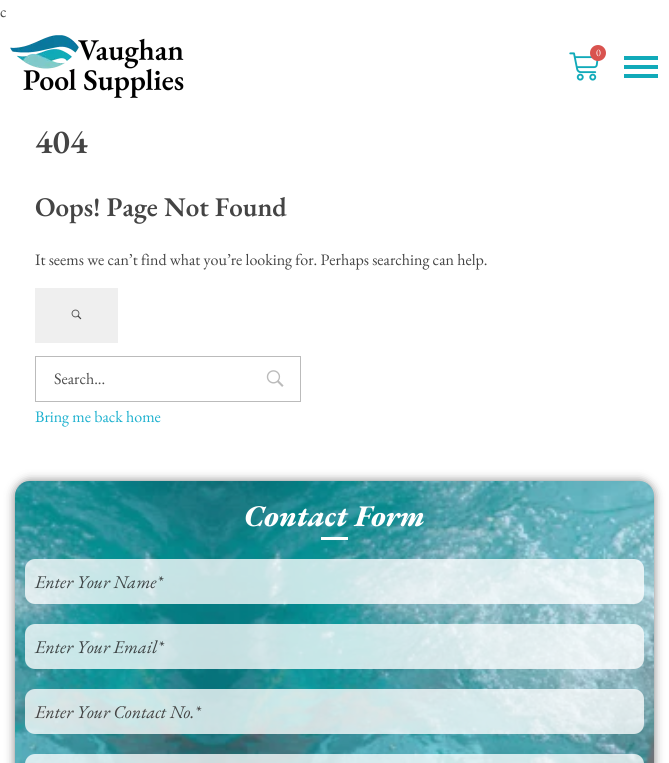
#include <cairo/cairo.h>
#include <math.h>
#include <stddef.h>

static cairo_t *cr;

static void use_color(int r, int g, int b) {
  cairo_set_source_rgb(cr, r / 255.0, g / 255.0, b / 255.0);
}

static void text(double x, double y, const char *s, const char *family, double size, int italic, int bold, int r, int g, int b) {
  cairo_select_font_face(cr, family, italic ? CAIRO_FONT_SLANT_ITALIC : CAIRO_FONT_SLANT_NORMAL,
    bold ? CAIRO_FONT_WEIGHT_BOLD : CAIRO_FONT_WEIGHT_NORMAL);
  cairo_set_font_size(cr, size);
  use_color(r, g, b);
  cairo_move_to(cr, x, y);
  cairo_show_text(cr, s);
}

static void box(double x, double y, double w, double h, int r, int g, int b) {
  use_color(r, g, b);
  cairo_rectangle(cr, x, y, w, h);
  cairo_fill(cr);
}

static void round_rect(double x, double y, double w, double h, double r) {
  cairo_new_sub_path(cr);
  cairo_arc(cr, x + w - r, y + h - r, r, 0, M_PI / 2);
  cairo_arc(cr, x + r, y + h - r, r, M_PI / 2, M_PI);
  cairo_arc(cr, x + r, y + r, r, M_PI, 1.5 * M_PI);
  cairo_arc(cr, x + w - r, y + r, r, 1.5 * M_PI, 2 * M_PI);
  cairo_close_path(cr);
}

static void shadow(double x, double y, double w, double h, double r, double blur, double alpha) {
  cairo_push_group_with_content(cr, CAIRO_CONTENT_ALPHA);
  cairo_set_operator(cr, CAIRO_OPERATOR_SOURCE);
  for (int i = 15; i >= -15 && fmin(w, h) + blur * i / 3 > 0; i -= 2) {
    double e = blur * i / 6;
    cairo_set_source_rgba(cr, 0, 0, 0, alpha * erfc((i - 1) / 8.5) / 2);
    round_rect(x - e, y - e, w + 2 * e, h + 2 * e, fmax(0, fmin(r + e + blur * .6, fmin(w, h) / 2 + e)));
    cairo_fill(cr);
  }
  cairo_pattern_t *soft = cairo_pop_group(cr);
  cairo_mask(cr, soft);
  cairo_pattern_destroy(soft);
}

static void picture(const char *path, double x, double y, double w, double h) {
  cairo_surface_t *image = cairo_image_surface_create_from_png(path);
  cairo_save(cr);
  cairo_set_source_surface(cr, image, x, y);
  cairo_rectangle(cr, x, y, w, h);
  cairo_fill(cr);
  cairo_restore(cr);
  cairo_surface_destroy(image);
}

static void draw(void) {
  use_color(255, 255, 255);
  cairo_paint(cr);
  picture("img_01.png", 10, 35, 174, 63);
  picture("img_02.png", 569, 52, 30, 29);
  use_color(217, 83, 79);
  cairo_arc(cr, 598, 53, 8, 0, 2 * M_PI);
  cairo_fill(cr);
  box(624, 56, 34, 4, 17, 170, 185);
  box(624, 65, 34, 4, 17, 170, 185);
  box(624, 74, 34, 4, 17, 170, 185);
  box(35, 288, 83, 55, 239, 239, 239);
  picture("img_03.png", 71, 309, 11, 11);
  cairo_rectangle(cr, 35.5, 356.5, 265, 45);
  use_color(187, 187, 187);
  cairo_set_line_width(cr, 1);
  cairo_stroke(cr);
  picture("img_04.png", 266, 370, 18, 17);
  use_color(0, 0, 0);
  shadow(15, 481, 639, 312, 15, 5, 0.5);
  picture("img_05.png", 15, 481, 639, 282);
  cairo_set_source_rgba(cr, 0.031, 0.498, 0.675, 0.2);
  cairo_new_path(cr);
  cairo_move_to(cr, 30, 481);
  cairo_line_to(cr, 639, 481);
  cairo_curve_to(cr, 647.5, 481, 654, 487.5, 654, 496);
  cairo_line_to(cr, 654, 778);
  cairo_line_to(cr, 15, 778);
  cairo_line_to(cr, 15, 496);
  cairo_curve_to(cr, 15, 487.5, 21.5, 481, 30, 481);
  cairo_close_path(cr);
  cairo_fill(cr);
  box(321, 537, 27, 3, 255, 255, 255);
  cairo_set_source_rgba(cr, 1, 1, 1, 0.77);
  round_rect(25, 559, 619, 45, 10);
  cairo_fill(cr);
  round_rect(25, 624, 619, 45, 10);
  cairo_fill(cr);
  round_rect(25, 689, 619, 45, 10);
  cairo_fill(cr);
  round_rect(25, 754, 619, 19, 10);
  cairo_fill(cr);
  text(0, 17, "c", "EB Garamond", 16, 0, 0, 68, 68, 68);
  text(596, 56, "0", "EB Garamond", 10, 0, 0, 255, 255, 255);
  text(35, 153, "404", "EB Garamond SemiBold", 34, 0, 0, 68, 68, 68);
  text(35, 216, "Oops! Page Not Found", "EB Garamond SemiBold", 27, 0, 0, 68, 68, 68);
  text(35, 265, "It seems we can’t find what you’re looking for. Perhaps searching can help.", "EB Garamond", 16, 0, 0, 68, 68, 68);
  text(54, 384, "Search...", "EB Garamond", 16, 0, 0, 77, 77, 77);
  text(35, 422, "Bring me back home", "EB Garamond", 16, 0, 0, 27, 176, 206);
  text(244, 526, "Contact Form", "EB Garamond ExtraBold", 30, 1, 0, 255, 255, 255);
  text(35, 588, "Enter Your Name*", "EB Garamond", 18, 1, 0, 62, 69, 70);
  text(35, 653, "Enter Your Email*", "EB Garamond", 18, 1, 0, 62, 69, 70);
  text(35, 718, "Enter Your Contact No.*", "EB Garamond", 18, 1, 0, 68, 68, 68);
}

int main(void) {
  cairo_surface_t *surface = cairo_image_surface_create(CAIRO_FORMAT_RGB24, 669, 763);
  cr = cairo_create(surface);
  cairo_font_options_t *options = cairo_font_options_create();
  cairo_font_options_set_hint_metrics(options, CAIRO_HINT_METRICS_OFF);
  cairo_font_options_set_hint_style(options, CAIRO_HINT_STYLE_NONE);
  cairo_set_font_options(cr, options);
  cairo_set_miter_limit(cr, 4);
  draw();
  cairo_surface_write_to_png(surface, "out.png");
  cairo_font_options_destroy(options);
  cairo_destroy(cr);
  cairo_surface_destroy(surface);
  return 0;
}
